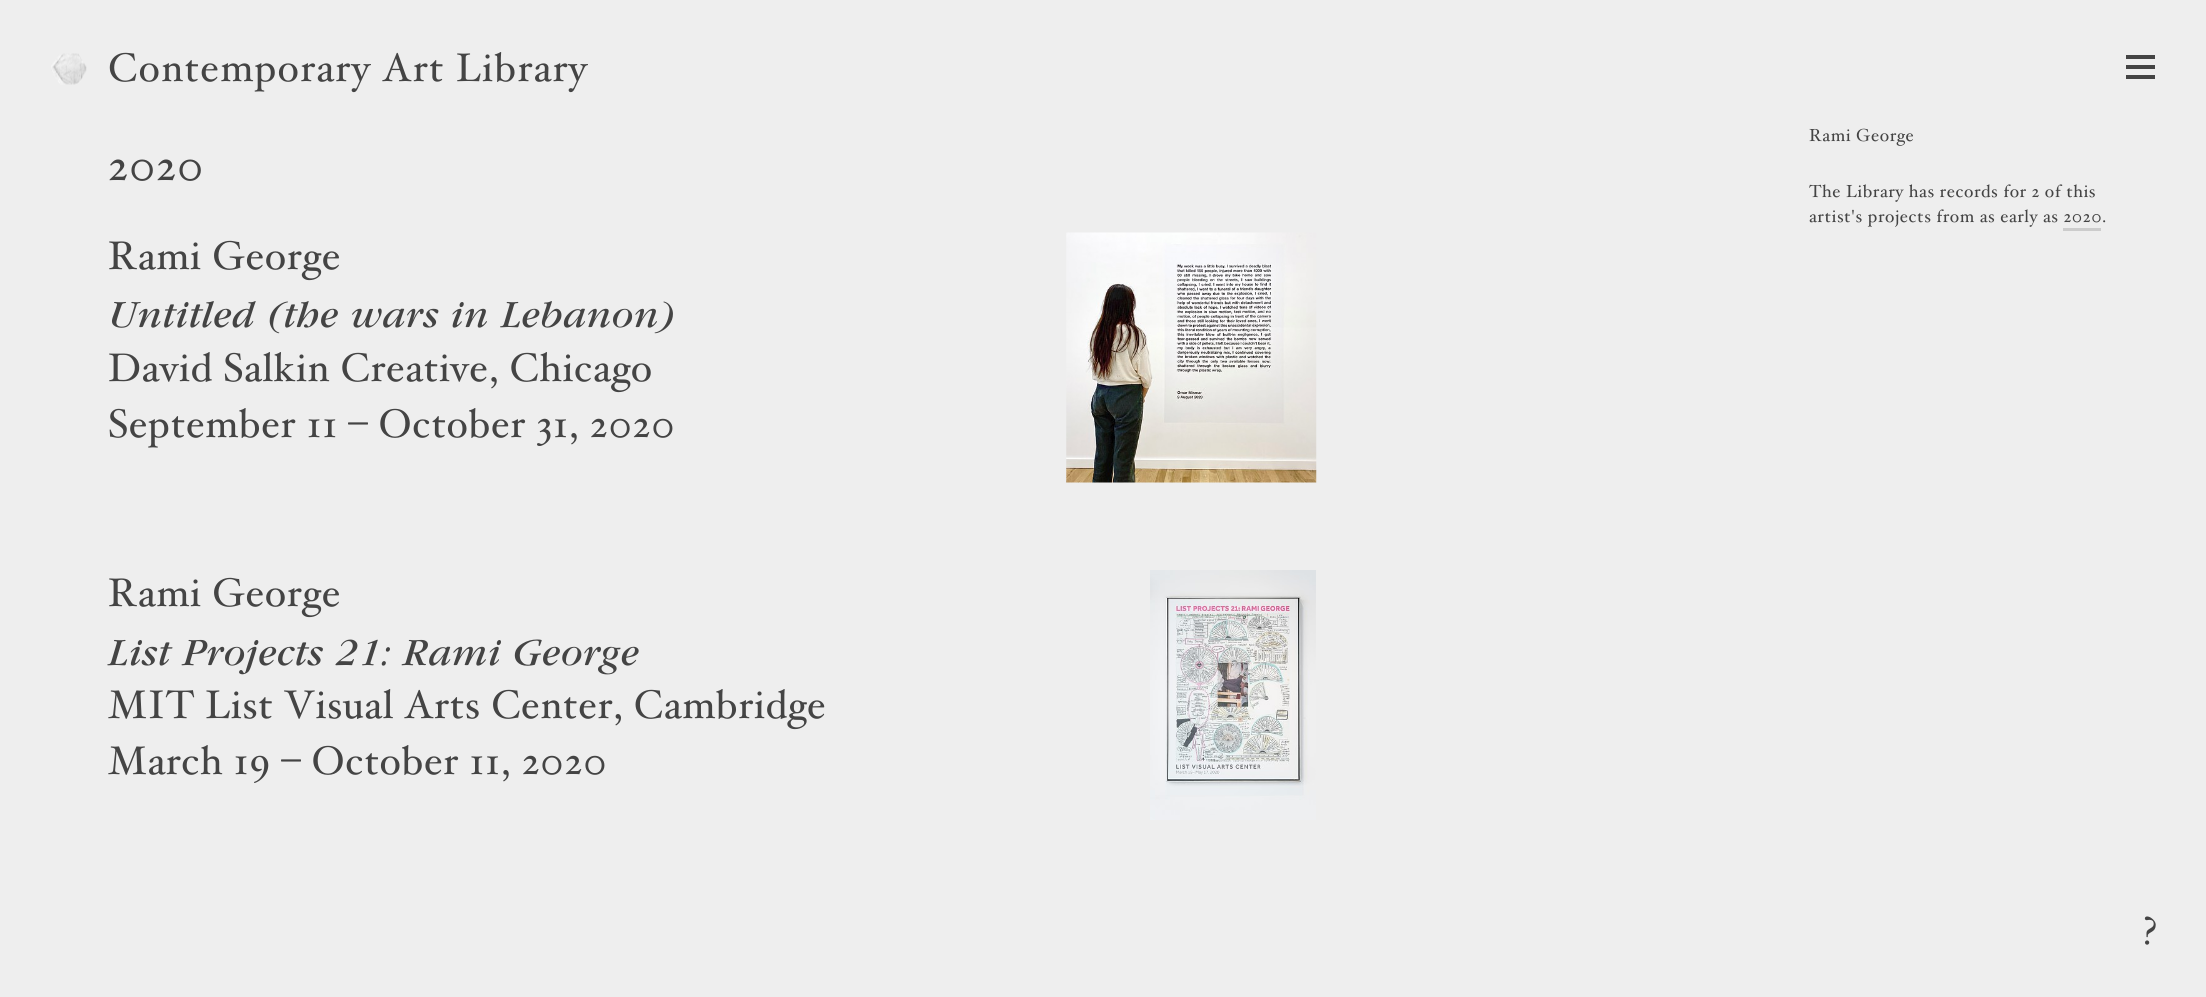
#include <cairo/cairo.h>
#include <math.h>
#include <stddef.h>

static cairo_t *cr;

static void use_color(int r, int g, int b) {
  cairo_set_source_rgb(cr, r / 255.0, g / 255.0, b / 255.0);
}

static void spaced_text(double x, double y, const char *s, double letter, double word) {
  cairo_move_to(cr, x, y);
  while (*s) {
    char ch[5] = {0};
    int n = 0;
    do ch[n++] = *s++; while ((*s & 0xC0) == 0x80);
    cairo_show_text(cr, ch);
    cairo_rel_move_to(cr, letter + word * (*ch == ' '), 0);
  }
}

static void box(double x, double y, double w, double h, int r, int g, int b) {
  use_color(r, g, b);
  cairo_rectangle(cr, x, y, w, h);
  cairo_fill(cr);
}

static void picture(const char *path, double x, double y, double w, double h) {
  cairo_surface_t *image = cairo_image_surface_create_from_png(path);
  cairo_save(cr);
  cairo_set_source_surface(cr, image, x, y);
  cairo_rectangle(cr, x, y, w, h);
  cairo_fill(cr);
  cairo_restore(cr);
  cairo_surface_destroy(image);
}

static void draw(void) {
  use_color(238, 238, 238);
  cairo_paint(cr);
  picture("img_01.png", 51, 53, 36, 32);
  box(2126, 55, 29, 4, 68, 68, 68);
  box(2126, 65, 29, 4, 68, 68, 68);
  box(2126, 75, 29, 4, 68, 68, 68);
  picture("img_02.png", 1066, 232, 251, 251);
  picture("img_03.png", 1150, 570, 166, 250);
  box(2063, 228, 38, 3, 204, 204, 204);
  cairo_select_font_face(cr, "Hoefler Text", CAIRO_FONT_SLANT_NORMAL, CAIRO_FONT_WEIGHT_NORMAL);
  cairo_set_font_size(cr, 40);
  use_color(68, 68, 68);
  spaced_text(108, 81, "Contemporary Art Library", 1.2, 0);
  cairo_set_font_size(cr, 45);
  spaced_text(108, 180, "2020", 0.55, 0);
  cairo_set_font_size(cr, 40);
  spaced_text(108, 269, "Rami George", 0.55, 0);
  cairo_select_font_face(cr, "Garamond", CAIRO_FONT_SLANT_ITALIC, CAIRO_FONT_WEIGHT_NORMAL);
  spaced_text(108, 327, "Untitled (the wars in Lebanon)", 0.55, 0);
  cairo_select_font_face(cr, "Hoefler Text", CAIRO_FONT_SLANT_NORMAL, CAIRO_FONT_WEIGHT_NORMAL);
  spaced_text(108, 381, "David Salkin Creative, Chicago", 0.55, 0);
  spaced_text(108, 437, "September 11 – October 31, 2020", 0.55, 0);
  spaced_text(108, 606, "Rami George", 0.55, 0);
  cairo_select_font_face(cr, "Garamond", CAIRO_FONT_SLANT_ITALIC, CAIRO_FONT_WEIGHT_NORMAL);
  spaced_text(108, 665, "List Projects 21: Rami George", 0.55, 0);
  cairo_select_font_face(cr, "Hoefler Text", CAIRO_FONT_SLANT_NORMAL, CAIRO_FONT_WEIGHT_NORMAL);
  spaced_text(108, 718, "MIT List Visual Arts Center, Cambridge", 0.55, 0);
  spaced_text(108, 774, "March 19 – October 11, 2020", 0.55, 0);
  cairo_set_font_size(cr, 17.5);
  spaced_text(1809, 141, "Rami George", 0.55, 0);
  spaced_text(1809, 197, "The Library has records for 2 of this", 0.55, 0);
  spaced_text(1809, 222, "artist's projects from as early as 2020.", 0.55, 0);
  cairo_set_font_size(cr, 40);
  spaced_text(2143, 944, "?", 0.55, 0);
}

int main(void) {
  cairo_surface_t *surface = cairo_image_surface_create(CAIRO_FORMAT_RGB24, 2206, 997);
  cr = cairo_create(surface);
  cairo_font_options_t *options = cairo_font_options_create();
  cairo_font_options_set_hint_metrics(options, CAIRO_HINT_METRICS_OFF);
  cairo_font_options_set_hint_style(options, CAIRO_HINT_STYLE_NONE);
  cairo_set_font_options(cr, options);
  cairo_set_miter_limit(cr, 4);
  draw();
  cairo_surface_write_to_png(surface, "out.png");
  cairo_font_options_destroy(options);
  cairo_destroy(cr);
  cairo_surface_destroy(surface);
  return 0;
}
